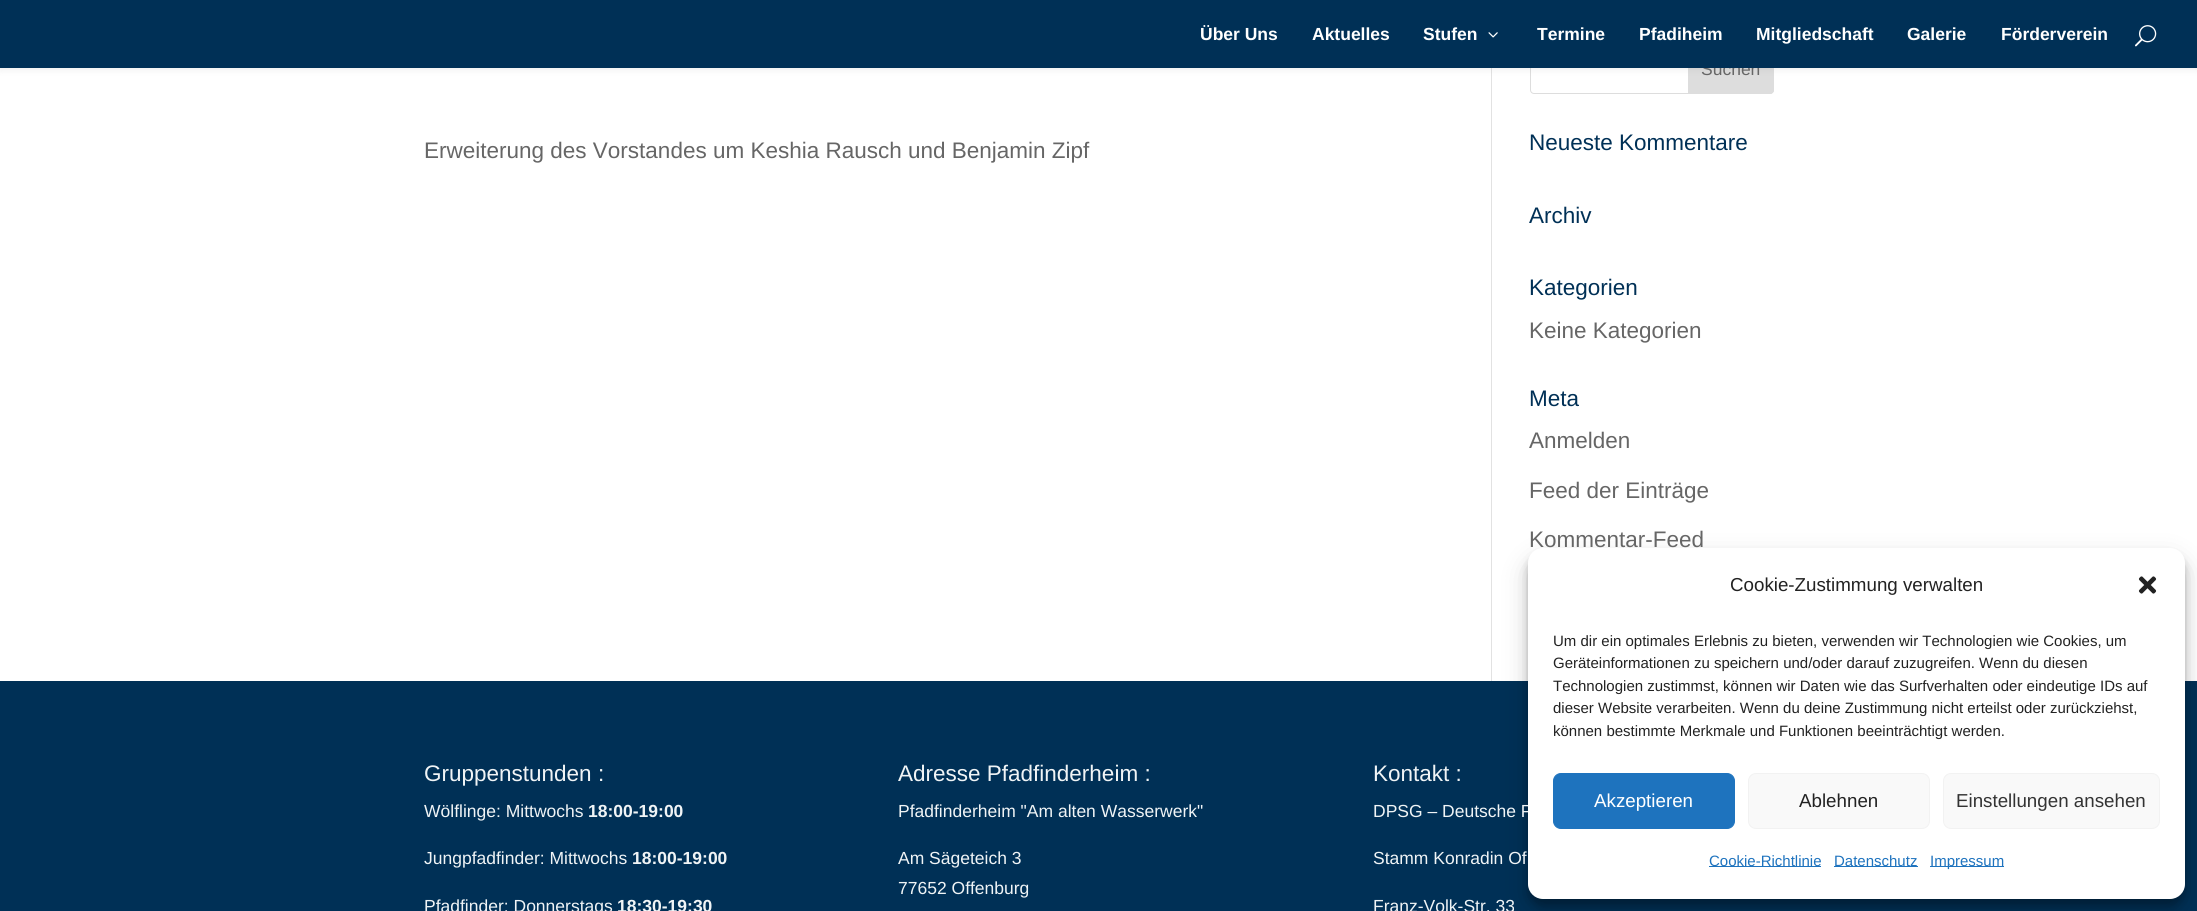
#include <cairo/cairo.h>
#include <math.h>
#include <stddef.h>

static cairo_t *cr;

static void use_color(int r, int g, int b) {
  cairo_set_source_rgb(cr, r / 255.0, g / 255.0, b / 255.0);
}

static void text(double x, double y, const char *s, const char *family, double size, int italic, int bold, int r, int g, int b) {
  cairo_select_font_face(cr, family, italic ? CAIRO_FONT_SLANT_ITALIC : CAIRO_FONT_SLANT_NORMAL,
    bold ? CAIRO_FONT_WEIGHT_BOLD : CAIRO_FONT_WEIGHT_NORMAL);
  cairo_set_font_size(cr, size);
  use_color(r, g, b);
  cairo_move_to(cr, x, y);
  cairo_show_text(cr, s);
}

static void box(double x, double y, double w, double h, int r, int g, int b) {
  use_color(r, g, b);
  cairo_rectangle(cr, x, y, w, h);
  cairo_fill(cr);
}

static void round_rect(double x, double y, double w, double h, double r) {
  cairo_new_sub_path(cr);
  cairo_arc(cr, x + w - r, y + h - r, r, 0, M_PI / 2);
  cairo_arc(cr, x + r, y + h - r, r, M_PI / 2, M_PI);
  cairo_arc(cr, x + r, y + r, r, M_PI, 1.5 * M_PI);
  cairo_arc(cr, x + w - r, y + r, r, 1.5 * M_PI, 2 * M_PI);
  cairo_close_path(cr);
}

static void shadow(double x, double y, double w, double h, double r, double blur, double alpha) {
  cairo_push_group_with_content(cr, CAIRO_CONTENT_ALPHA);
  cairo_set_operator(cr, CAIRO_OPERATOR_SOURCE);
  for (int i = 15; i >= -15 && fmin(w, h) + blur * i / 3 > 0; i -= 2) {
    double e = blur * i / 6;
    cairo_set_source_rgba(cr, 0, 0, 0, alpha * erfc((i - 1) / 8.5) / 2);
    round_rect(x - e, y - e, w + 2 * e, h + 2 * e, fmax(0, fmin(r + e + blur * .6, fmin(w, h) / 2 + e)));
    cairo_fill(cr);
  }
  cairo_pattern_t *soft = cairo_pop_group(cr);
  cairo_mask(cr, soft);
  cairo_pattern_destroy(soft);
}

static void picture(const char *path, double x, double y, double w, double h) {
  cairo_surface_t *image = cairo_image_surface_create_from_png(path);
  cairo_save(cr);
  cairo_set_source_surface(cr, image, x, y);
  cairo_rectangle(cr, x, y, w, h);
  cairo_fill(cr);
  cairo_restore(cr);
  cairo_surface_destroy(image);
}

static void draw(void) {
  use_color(255, 255, 255);
  cairo_paint(cr);
  round_rect(1530.5, 44.5, 243, 49, 3.5);
  use_color(221, 221, 221);
  cairo_set_line_width(cr, 1);
  cairo_stroke(cr);
  cairo_new_path(cr);
  cairo_move_to(cr, 1688.5, 44.5);
  cairo_line_to(cr, 1770, 44.5);
  cairo_curve_to(cr, 1772, 44.5, 1773.5, 46, 1773.5, 48);
  cairo_line_to(cr, 1773.5, 90);
  cairo_curve_to(cr, 1773.5, 92, 1772, 93.5, 1770, 93.5);
  cairo_line_to(cr, 1688.5, 93.5);
  cairo_close_path(cr);
  cairo_fill_preserve(cr);
  cairo_stroke(cr);
  box(1491, 68, 1, 613, 226, 226, 226);
  use_color(0, 0, 0);
  shadow(0, 0, 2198, 68, 0, 4.5, 0.1);
  box(0, 681, 2197, 230, 0, 48, 86);
  use_color(0, 0, 0);
  shadow(1528, 555, 657, 351, 15, 4, 0.23);
  shadow(1528, 560, 657, 351, 15, 12.5, 0.19);
  text(424, 158, "Erweiterung des Vorstandes um Keshia Rausch und Benjamin Zipf", "Liberation Sans", 22.5, 0, 0, 102, 102, 102);
  text(1701, 75, "Suchen", "Liberation Sans", 17.5, 0, 0, 102, 102, 102);
  box(0, 0, 2197, 68, 0, 48, 86);
  picture("img_02.png", 2135, 25, 22, 22);
  text(2001, 40, "Förderverein", "Liberation Sans", 17.5, 0, 1, 255, 255, 255);
  text(1907, 40, "Galerie", "Liberation Sans", 17.5, 0, 1, 255, 255, 255);
  text(1756, 40, "Mitgliedschaft", "Liberation Sans", 17.5, 0, 1, 255, 255, 255);
  text(1639, 40, "Pfadiheim", "Liberation Sans", 17.5, 0, 1, 255, 255, 255);
  text(1537, 40, "Termine", "Liberation Sans", 17.5, 0, 1, 255, 255, 255);
  picture("img_01.png", 1488, 32, 10, 6);
  text(1423, 40, "Stufen", "Liberation Sans", 17.5, 0, 1, 255, 255, 255);
  text(1312, 40, "Aktuelles", "Liberation Sans", 17.5, 0, 1, 255, 255, 255);
  text(1200, 40, "Über Uns", "Liberation Sans", 17.5, 0, 1, 255, 255, 255);
  text(1529, 150, "Neueste Kommentare", "Liberation Sans", 22.5, 0, 0, 0, 48, 86);
  text(1529, 223, "Archiv", "Liberation Sans", 22.5, 0, 0, 0, 48, 86);
  text(1529, 295, "Kategorien", "Liberation Sans", 22.5, 0, 0, 0, 48, 86);
  text(1529, 338, "Keine Kategorien", "Liberation Sans", 22.5, 0, 0, 102, 102, 102);
  text(1529, 406, "Meta", "Liberation Sans", 22.5, 0, 0, 0, 48, 86);
  text(1529, 448, "Anmelden", "Liberation Sans", 22.5, 0, 0, 102, 102, 102);
  text(1529, 498, "Feed der Einträge", "Liberation Sans", 22.5, 0, 0, 102, 102, 102);
  text(1529, 547, "Kommentar-Feed", "Liberation Sans", 22.5, 0, 0, 102, 102, 102);
  text(424, 781, "Gruppenstunden :", "Liberation Sans", 22.5, 0, 0, 240, 244, 246);
  text(424, 817, "Wölflinge: Mittwochs", "Liberation Sans", 17.5, 0, 0, 240, 244, 246);
  text(588, 817, "18:00-19:00", "Liberation Sans", 17.5, 0, 1, 240, 244, 246);
  text(424, 864, "Jungpfadfinder: Mittwochs", "Liberation Sans", 17.5, 0, 0, 240, 244, 246);
  text(632, 864, "18:00-19:00", "Liberation Sans", 17.5, 0, 1, 240, 244, 246);
  text(424, 912, "Pfadfinder: Donnerstags", "Liberation Sans", 17.5, 0, 0, 240, 244, 246);
  text(617, 912, "18:30-19:30", "Liberation Sans", 17.5, 0, 1, 240, 244, 246);
  text(898, 781, "Adresse Pfadfinderheim :", "Liberation Sans", 22.5, 0, 0, 240, 244, 246);
  text(898, 817, "Pfadfinderheim \"Am alten Wasserwerk\"", "Liberation Sans", 17.5, 0, 0, 240, 244, 246);
  text(898, 864, "Am Sägeteich 3", "Liberation Sans", 17.5, 0, 0, 240, 244, 246);
  text(898, 894, "77652 Offenburg", "Liberation Sans", 17.5, 0, 0, 240, 244, 246);
  text(1373, 781, "Kontakt :", "Liberation Sans", 22.5, 0, 0, 240, 244, 246);
  text(1373, 817, "DPSG – Deutsche P", "Liberation Sans", 17.5, 0, 0, 240, 244, 246);
  text(1373, 864, "Stamm Konradin Of", "Liberation Sans", 17.5, 0, 0, 240, 244, 246);
  text(1373, 912, "Franz-Volk-Str. 33", "Liberation Sans", 17.5, 0, 0, 240, 244, 246);
  use_color(255, 255, 255);
  round_rect(1528, 548, 657, 351, 15);
  cairo_fill(cr);
  text(1730, 591, "Cookie-Zustimmung verwalten", "Liberation Sans", 18.75, 0, 0, 34, 34, 34);
  picture("img_03.png", 2138, 576, 19, 18);
  text(1553, 646, "Um dir ein optimales Erlebnis zu bieten, verwenden wir Technologien wie Cookies, um", "Liberation Sans", 15, 0, 0, 34, 34, 34);
  text(1553, 668, "Geräteinformationen zu speichern und/oder darauf zuzugreifen. Wenn du diesen", "Liberation Sans", 15, 0, 0, 34, 34, 34);
  text(1553, 691, "Technologien zustimmst, können wir Daten wie das Surfverhalten oder eindeutige IDs auf", "Liberation Sans", 15, 0, 0, 34, 34, 34);
  text(1553, 713, "dieser Website verarbeiten. Wenn du deine Zustimmung nicht erteilst oder zurückziehst,", "Liberation Sans", 15, 0, 0, 34, 34, 34);
  text(1553, 736, "können bestimmte Merkmale und Funktionen beeinträchtigt werden.", "Liberation Sans", 15, 0, 0, 34, 34, 34);
  use_color(30, 115, 190);
  round_rect(1553.5, 773.5, 181, 55, 7.5);
  cairo_fill_preserve(cr);
  cairo_stroke(cr);
  text(1594, 807, "Akzeptieren", "Liberation Sans", 18.75, 0, 0, 255, 255, 255);
  use_color(249, 249, 249);
  round_rect(1748.5, 773.5, 181, 55, 7.5);
  cairo_fill_preserve(cr);
  use_color(242, 242, 242);
  cairo_stroke(cr);
  text(1799, 807, "Ablehnen", "Liberation Sans", 18.75, 0, 0, 34, 34, 34);
  use_color(249, 249, 249);
  round_rect(1943.5, 773.5, 216, 55, 7.5);
  cairo_fill_preserve(cr);
  use_color(242, 242, 242);
  cairo_stroke(cr);
  text(1956, 807, "Einstellungen ansehen", "Liberation Sans", 18.75, 0, 0, 51, 51, 51);
  box(1709, 866, 112, 1, 30, 115, 190);
  text(1709, 866, "Cookie-Richtlinie", "Liberation Sans", 15, 0, 0, 30, 115, 190);
  box(1834, 866, 84, 1, 30, 115, 190);
  text(1834, 866, "Datenschutz", "Liberation Sans", 15, 0, 0, 30, 115, 190);
  box(1930, 866, 74, 1, 30, 115, 190);
  text(1930, 866, "Impressum", "Liberation Sans", 15, 0, 0, 30, 115, 190);
}

int main(void) {
  cairo_surface_t *surface = cairo_image_surface_create(CAIRO_FORMAT_RGB24, 2197, 911);
  cr = cairo_create(surface);
  cairo_font_options_t *options = cairo_font_options_create();
  cairo_font_options_set_hint_metrics(options, CAIRO_HINT_METRICS_OFF);
  cairo_font_options_set_hint_style(options, CAIRO_HINT_STYLE_NONE);
  cairo_set_font_options(cr, options);
  cairo_set_miter_limit(cr, 4);
  draw();
  cairo_surface_write_to_png(surface, "out.png");
  cairo_font_options_destroy(options);
  cairo_destroy(cr);
  cairo_surface_destroy(surface);
  return 0;
}
